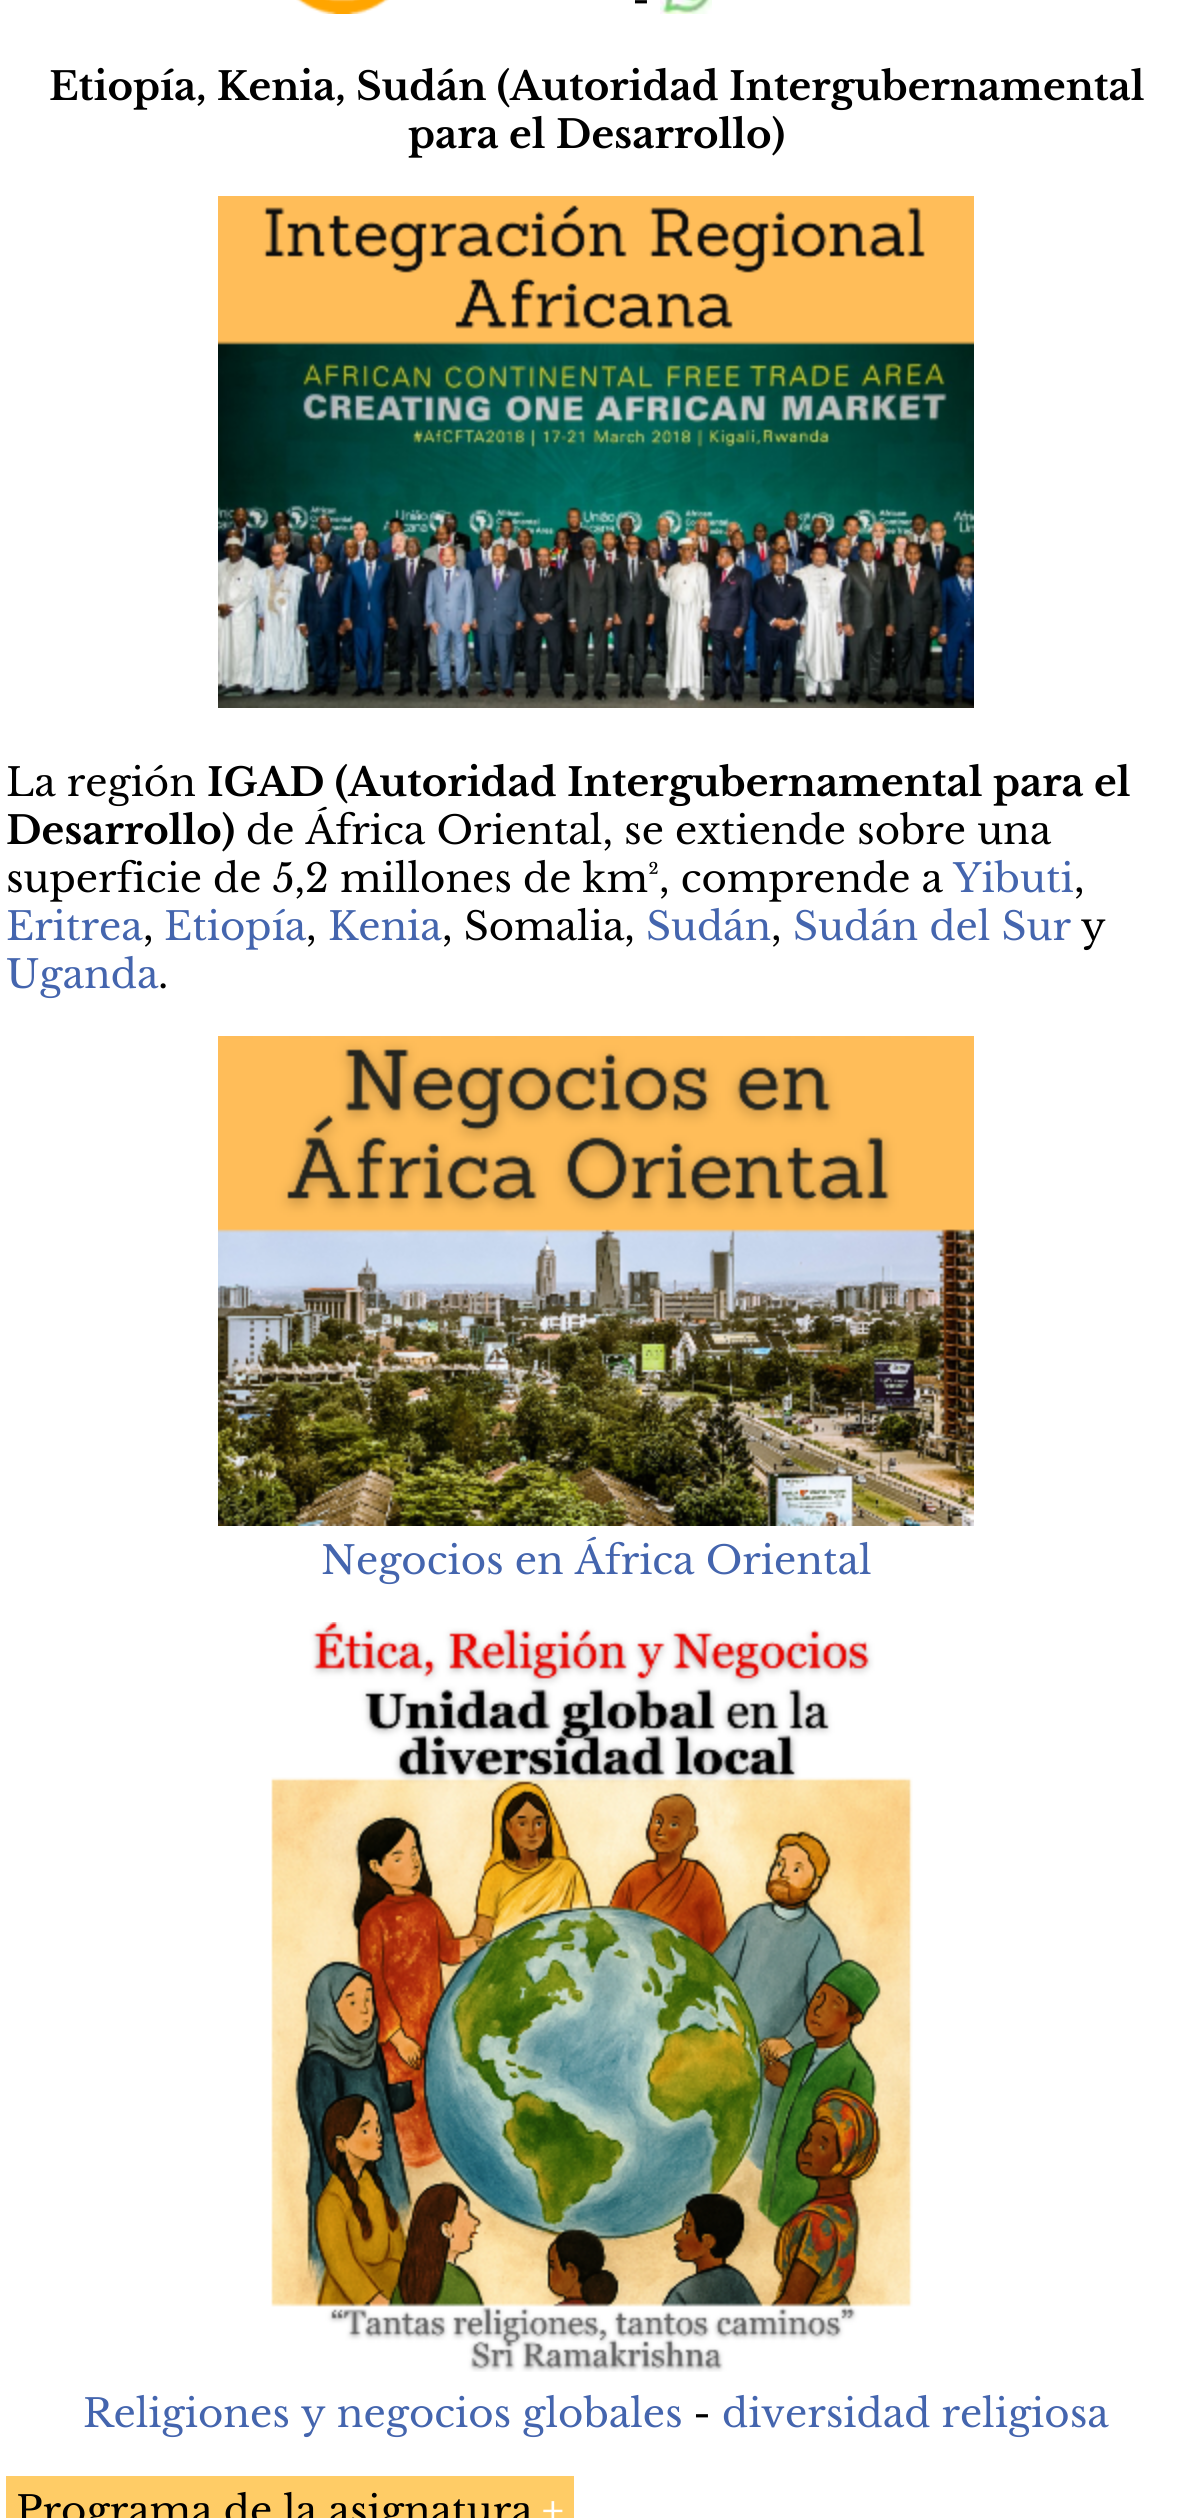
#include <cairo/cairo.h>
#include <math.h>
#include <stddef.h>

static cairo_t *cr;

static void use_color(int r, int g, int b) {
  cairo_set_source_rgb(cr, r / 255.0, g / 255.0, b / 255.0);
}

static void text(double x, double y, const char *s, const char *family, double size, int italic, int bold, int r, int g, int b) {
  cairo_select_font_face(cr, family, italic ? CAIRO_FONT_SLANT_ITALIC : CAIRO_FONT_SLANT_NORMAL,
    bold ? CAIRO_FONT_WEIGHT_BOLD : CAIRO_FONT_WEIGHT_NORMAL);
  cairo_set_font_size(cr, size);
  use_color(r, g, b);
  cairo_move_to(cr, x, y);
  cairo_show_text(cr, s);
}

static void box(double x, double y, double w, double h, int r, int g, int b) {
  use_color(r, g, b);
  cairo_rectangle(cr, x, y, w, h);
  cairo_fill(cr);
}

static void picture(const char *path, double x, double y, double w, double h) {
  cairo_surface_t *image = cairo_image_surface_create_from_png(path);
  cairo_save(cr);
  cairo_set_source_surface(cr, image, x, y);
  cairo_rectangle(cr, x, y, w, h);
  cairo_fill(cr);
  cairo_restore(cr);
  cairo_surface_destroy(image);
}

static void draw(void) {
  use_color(255, 255, 255);
  cairo_paint(cr);
  picture("img_01.png", 296, 0, 93, 14);
  picture("img_02.png", 660, 0, 52, 14);
  picture("img_03.png", 218, 196, 756, 512);
  picture("img_04.png", 218, 1036, 756, 490);
  picture("img_05.png", 271, 1622, 642, 750);
  box(6, 2476, 568, 42, 255, 204, 102);
  text(632, 13, "-", "Libre Baskerville", 38.75, 0, 0, 0, 0, 0);
  text(49, 100, "Etiopía, Kenia, Sudán (Autoridad Intergubernamental", "Libre Baskerville", 38.75, 0, 1, 0, 0, 0);
  text(408, 148, "para el Desarrollo)", "Libre Baskerville", 38.75, 0, 1, 0, 0, 0);
  text(6, 796, "La región", "Libre Baskerville", 38.75, 0, 0, 0, 0, 0);
  text(207, 796, "IGAD (Autoridad Intergubernamental para el", "Libre Baskerville", 38.75, 0, 1, 0, 0, 0);
  text(6, 844, "Desarrollo)", "Libre Baskerville", 38.75, 0, 1, 0, 0, 0);
  text(246, 844, "de África Oriental, se extiende sobre una", "Libre Baskerville", 38.75, 0, 0, 0, 0, 0);
  text(6, 892, "superficie de 5,2 millones de km², comprende a", "Libre Baskerville", 38.75, 0, 0, 0, 0, 0);
  text(953, 892, "Yibuti", "Libre Baskerville", 38.75, 0, 0, 68, 101, 174);
  text(1074, 892, ",", "Libre Baskerville", 38.75, 0, 0, 0, 0, 0);
  text(6, 940, "Eritrea", "Libre Baskerville", 38.75, 0, 0, 68, 101, 174);
  text(143, 940, ",", "Libre Baskerville", 38.75, 0, 0, 0, 0, 0);
  text(164, 940, "Etiopía", "Libre Baskerville", 38.75, 0, 0, 68, 101, 174);
  text(306, 940, ",", "Libre Baskerville", 38.75, 0, 0, 0, 0, 0);
  text(328, 940, "Kenia", "Libre Baskerville", 38.75, 0, 0, 68, 101, 174);
  text(442, 940, ", Somalia,", "Libre Baskerville", 38.75, 0, 0, 0, 0, 0);
  text(646, 940, "Sudán", "Libre Baskerville", 38.75, 0, 0, 68, 101, 174);
  text(771, 940, ",", "Libre Baskerville", 38.75, 0, 0, 0, 0, 0);
  text(793, 940, "Sudán del Sur", "Libre Baskerville", 38.75, 0, 0, 68, 101, 174);
  text(1081, 940, "y", "Libre Baskerville", 38.75, 0, 0, 0, 0, 0);
  text(6, 988, "Uganda", "Libre Baskerville", 38.75, 0, 0, 68, 101, 174);
  text(158, 988, ".", "Libre Baskerville", 38.75, 0, 0, 0, 0, 0);
  text(321, 1574, "Negocios en África Oriental", "Libre Baskerville", 38.75, 0, 0, 68, 101, 174);
  text(83, 2427, "Religiones y negocios globales", "Libre Baskerville", 38.75, 0, 0, 68, 101, 174);
  text(693, 2427, "-", "Libre Baskerville", 38.75, 0, 0, 0, 0, 0);
  text(722, 2427, "diversidad religiosa", "Libre Baskerville", 38.75, 0, 0, 68, 101, 174);
  text(16, 2524, "Programa de la asignatura", "Libre Baskerville", 38.75, 0, 0, 0, 0, 0);
  text(542, 2524, "+", "Libre Baskerville", 38.75, 0, 1, 255, 255, 255);
}

int main(void) {
  cairo_surface_t *surface = cairo_image_surface_create(CAIRO_FORMAT_RGB24, 1191, 2518);
  cr = cairo_create(surface);
  cairo_font_options_t *options = cairo_font_options_create();
  cairo_font_options_set_hint_metrics(options, CAIRO_HINT_METRICS_OFF);
  cairo_font_options_set_hint_style(options, CAIRO_HINT_STYLE_NONE);
  cairo_set_font_options(cr, options);
  cairo_set_miter_limit(cr, 4);
  draw();
  cairo_surface_write_to_png(surface, "out.png");
  cairo_font_options_destroy(options);
  cairo_destroy(cr);
  cairo_surface_destroy(surface);
  return 0;
}
